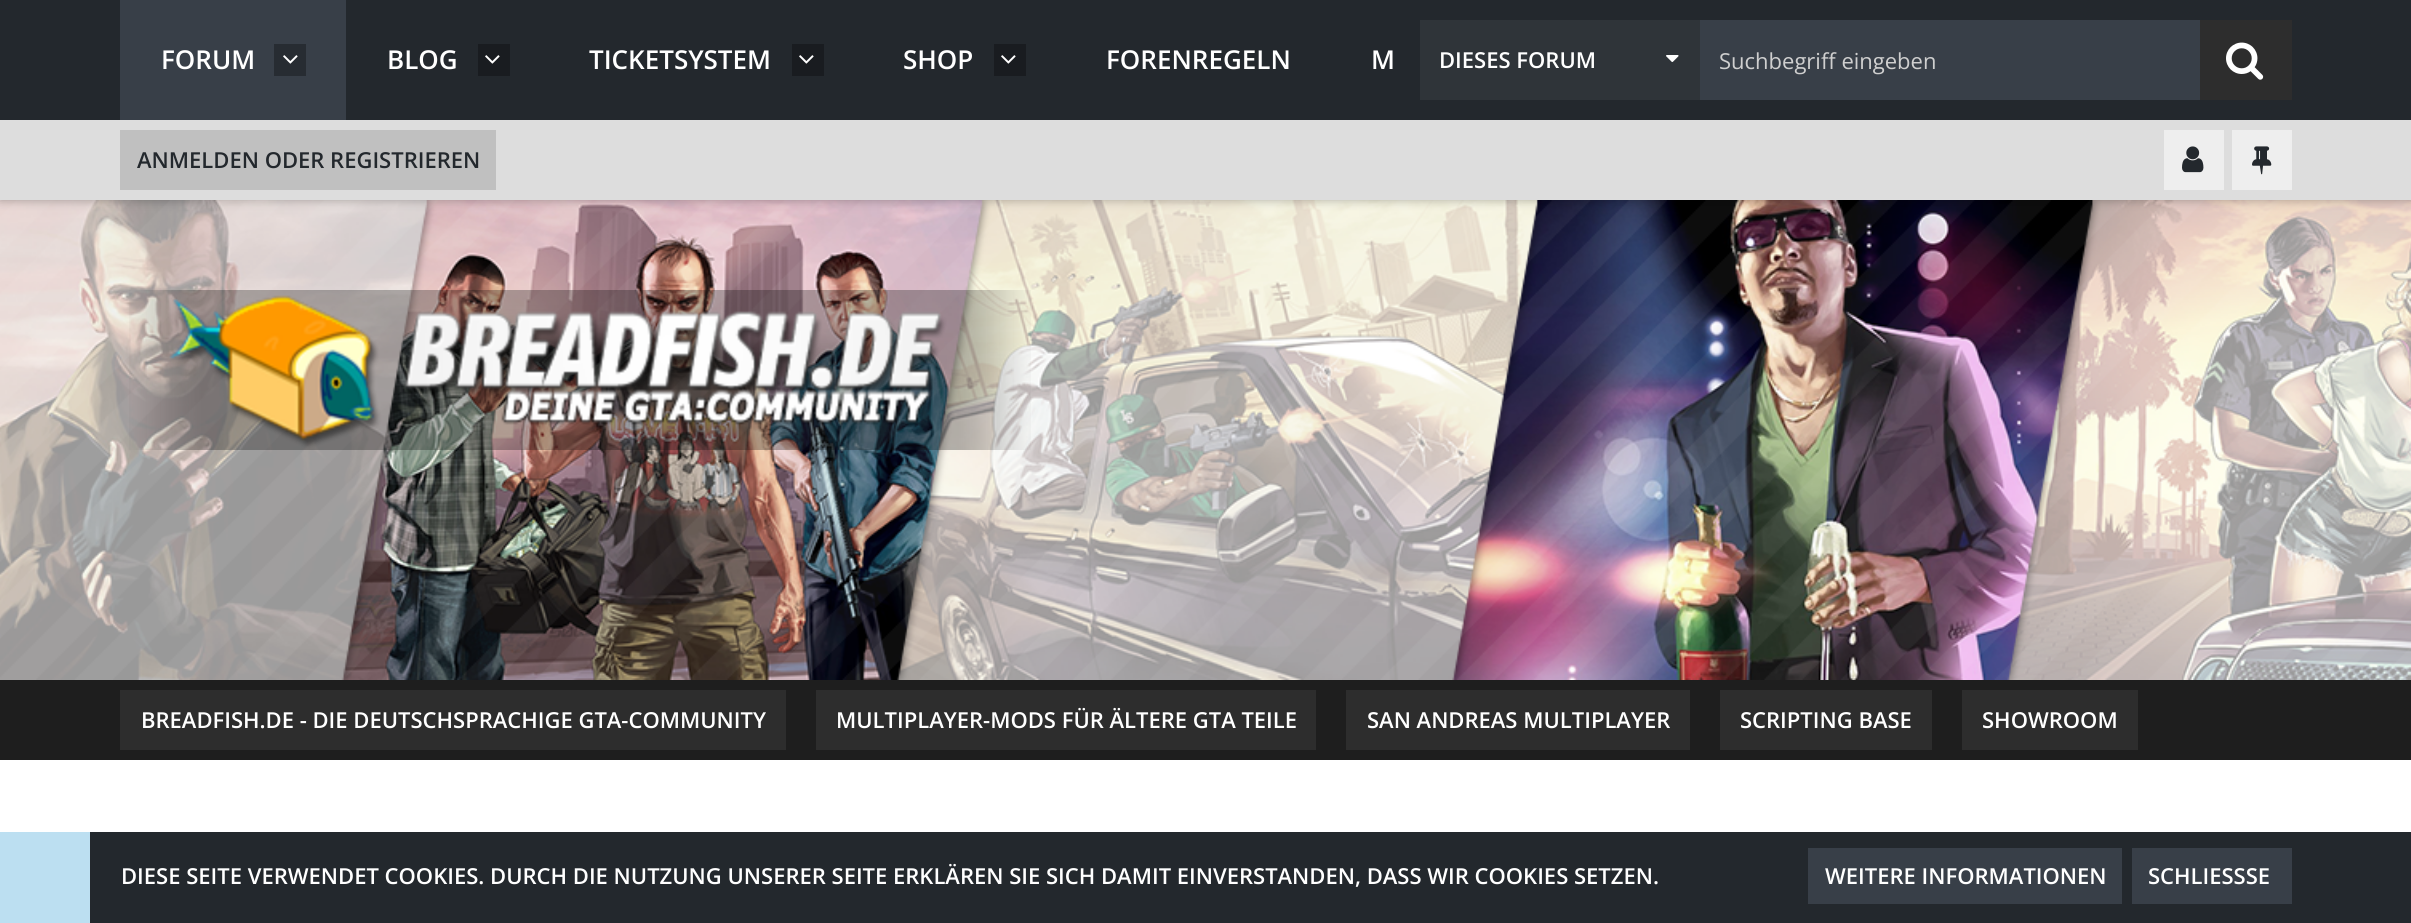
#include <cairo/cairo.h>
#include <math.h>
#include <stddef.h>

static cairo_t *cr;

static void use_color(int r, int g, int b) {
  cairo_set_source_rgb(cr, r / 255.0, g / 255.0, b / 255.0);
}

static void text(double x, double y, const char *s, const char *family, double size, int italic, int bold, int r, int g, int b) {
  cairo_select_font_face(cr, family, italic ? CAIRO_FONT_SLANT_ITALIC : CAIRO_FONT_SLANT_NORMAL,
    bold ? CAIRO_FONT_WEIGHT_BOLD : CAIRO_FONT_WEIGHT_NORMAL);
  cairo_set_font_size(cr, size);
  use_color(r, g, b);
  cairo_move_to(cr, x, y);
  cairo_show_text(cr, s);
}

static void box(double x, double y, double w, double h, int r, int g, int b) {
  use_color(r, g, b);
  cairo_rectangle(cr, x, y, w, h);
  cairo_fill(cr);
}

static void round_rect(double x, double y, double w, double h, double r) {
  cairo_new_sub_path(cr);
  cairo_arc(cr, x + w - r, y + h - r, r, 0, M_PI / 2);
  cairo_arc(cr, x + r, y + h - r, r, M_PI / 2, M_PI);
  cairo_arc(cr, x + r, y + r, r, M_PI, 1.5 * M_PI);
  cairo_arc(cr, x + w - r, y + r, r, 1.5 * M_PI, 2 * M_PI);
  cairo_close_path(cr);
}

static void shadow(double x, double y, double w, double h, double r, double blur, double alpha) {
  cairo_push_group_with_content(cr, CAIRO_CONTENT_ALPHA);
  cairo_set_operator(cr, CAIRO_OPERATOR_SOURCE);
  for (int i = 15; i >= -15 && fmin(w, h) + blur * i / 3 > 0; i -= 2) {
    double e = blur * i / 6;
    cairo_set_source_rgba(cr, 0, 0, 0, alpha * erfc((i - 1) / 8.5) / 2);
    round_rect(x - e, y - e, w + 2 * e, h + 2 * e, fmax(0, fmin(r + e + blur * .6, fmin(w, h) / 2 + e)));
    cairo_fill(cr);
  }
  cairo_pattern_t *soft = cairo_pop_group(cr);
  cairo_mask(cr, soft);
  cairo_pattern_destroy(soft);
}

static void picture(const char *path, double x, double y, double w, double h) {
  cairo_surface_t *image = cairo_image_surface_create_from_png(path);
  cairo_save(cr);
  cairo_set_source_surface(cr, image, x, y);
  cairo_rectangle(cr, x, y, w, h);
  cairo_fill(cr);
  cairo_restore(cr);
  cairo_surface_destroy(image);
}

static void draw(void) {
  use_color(255, 255, 255);
  cairo_paint(cr);
  picture("img_07.png", 0, 200, 2411, 480);
  use_color(0, 0, 0);
  shadow(0, 120, 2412, 80, 0, 5, 0.3);
  box(0, 0, 2411, 120, 35, 40, 45);
  box(120, 0, 226, 120, 56, 63, 72);
  box(274, 44, 32, 32, 39, 44, 50);
  picture("img_01.png", 283, 55, 15, 9);
  box(478, 44, 32, 32, 25, 28, 32);
  picture("img_02.png", 485, 55, 15, 9);
  box(792, 44, 32, 32, 25, 28, 32);
  picture("img_02.png", 799, 55, 15, 9);
  box(994, 44, 32, 32, 25, 28, 32);
  picture("img_02.png", 1001, 55, 15, 9);
  box(1420, 20, 280, 80, 47, 52, 57);
  picture("img_03.png", 1666, 55, 13, 7);
  box(1700, 20, 500, 80, 56, 63, 72);
  box(2200, 20, 92, 80, 45, 45, 45);
  picture("img_04.png", 2226, 42, 38, 38);
  box(0, 120, 2411, 80, 221, 221, 221);
  box(120, 130, 376, 60, 192, 192, 192);
  box(2164, 130, 60, 60, 238, 238, 238);
  picture("img_05.png", 2182, 146, 22, 27);
  box(2232, 130, 60, 60, 238, 238, 238);
  picture("img_06.png", 2252, 146, 20, 29);
  picture("img_08.png", 129, 290, 902, 160);
  box(0, 680, 2411, 80, 30, 30, 30);
  box(120, 690, 666, 60, 45, 45, 45);
  box(816, 690, 500, 60, 45, 45, 45);
  box(1346, 690, 344, 60, 45, 45, 45);
  box(1720, 690, 212, 60, 45, 45, 45);
  box(1962, 690, 176, 60, 45, 45, 45);
  box(90, 832, 2321, 91, 35, 40, 45);
  box(0, 832, 90, 91, 188, 223, 241);
  box(1808, 848, 314, 56, 56, 63, 72);
  box(2132, 848, 160, 56, 56, 63, 72);
  text(161, 69, "FORUM", "Open Sans SemiBold", 26, 0, 0, 255, 255, 255);
  text(387, 69, "BLOG", "Open Sans SemiBold", 26, 0, 0, 255, 255, 255);
  text(589, 69, "TICKETSYSTEM", "Open Sans SemiBold", 26, 0, 0, 255, 255, 255);
  text(903, 69, "SHOP", "Open Sans SemiBold", 26, 0, 0, 255, 255, 255);
  text(1106, 69, "FORENREGELN", "Open Sans SemiBold", 26, 0, 0, 255, 255, 255);
  text(1371, 69, "M", "Open Sans SemiBold", 26, 0, 0, 255, 255, 255);
  text(1439, 68, "DIESES FORUM", "Open Sans SemiBold", 22, 0, 0, 255, 255, 255);
  text(1719, 69, "Suchbegriff eingeben", "Open Sans", 22, 0, 0, 207, 207, 207);
  text(137, 168, "ANMELDEN ODER REGISTRIEREN", "Open Sans SemiBold", 22, 0, 0, 35, 40, 45);
  text(141, 728, "BREADFISH.DE - DIE DEUTSCHSPRACHIGE GTA-COMMUNITY", "Open Sans SemiBold", 22, 0, 0, 255, 255, 255);
  text(836, 728, "MULTIPLAYER-MODS FÜR ÄLTERE GTA TEILE", "Open Sans SemiBold", 22, 0, 0, 255, 255, 255);
  text(1367, 728, "SAN ANDREAS MULTIPLAYER", "Open Sans SemiBold", 22, 0, 0, 255, 255, 255);
  text(1740, 728, "SCRIPTING BASE", "Open Sans SemiBold", 22, 0, 0, 255, 255, 255);
  text(1982, 728, "SHOWROOM", "Open Sans SemiBold", 22, 0, 0, 255, 255, 255);
  text(121, 884, "DIESE SEITE VERWENDET COOKIES. DURCH DIE NUTZUNG UNSERER SEITE ERKLÄREN SIE SICH DAMIT EINVERSTANDEN, DASS WIR COOKIES SETZEN.", "Open Sans SemiBold", 22, 0, 0, 255, 255, 255);
  text(1825, 884, "WEITERE INFORMATIONEN", "Open Sans SemiBold", 22, 0, 0, 255, 255, 255);
  text(2148, 884, "SCHLIESSSE", "Open Sans SemiBold", 22, 0, 0, 255, 255, 255);
}

int main(void) {
  cairo_surface_t *surface = cairo_image_surface_create(CAIRO_FORMAT_RGB24, 2411, 923);
  cr = cairo_create(surface);
  cairo_font_options_t *options = cairo_font_options_create();
  cairo_font_options_set_hint_metrics(options, CAIRO_HINT_METRICS_OFF);
  cairo_font_options_set_hint_style(options, CAIRO_HINT_STYLE_NONE);
  cairo_set_font_options(cr, options);
  cairo_set_miter_limit(cr, 4);
  draw();
  cairo_surface_write_to_png(surface, "out.png");
  cairo_font_options_destroy(options);
  cairo_destroy(cr);
  cairo_surface_destroy(surface);
  return 0;
}
